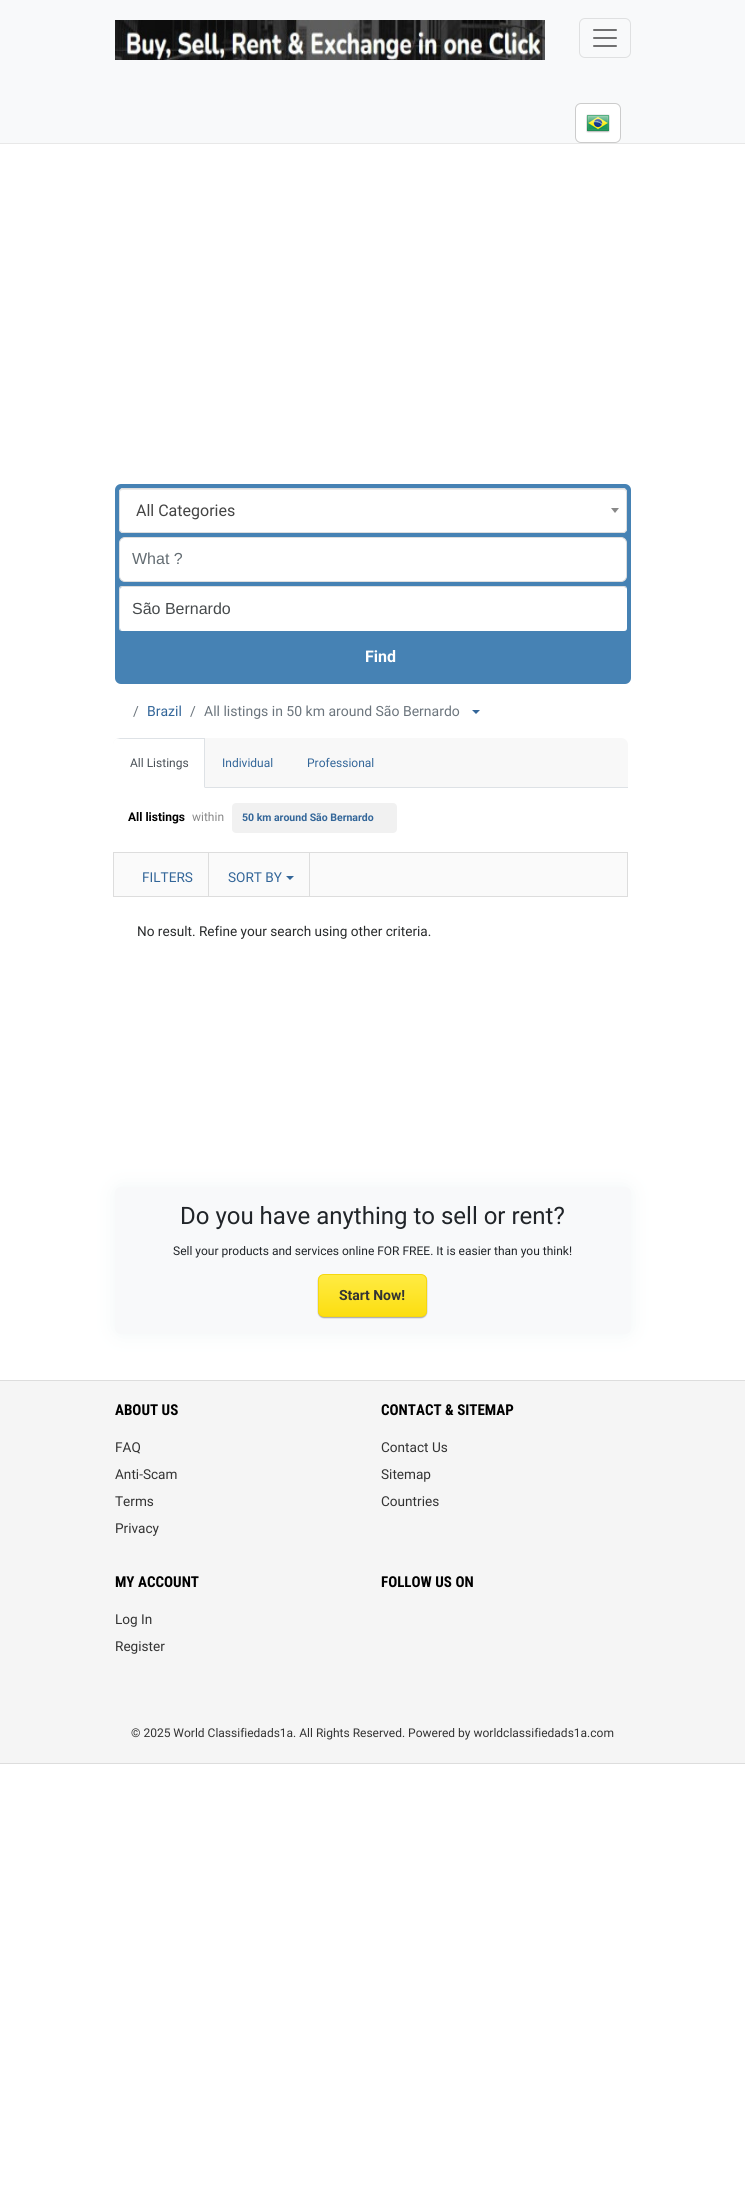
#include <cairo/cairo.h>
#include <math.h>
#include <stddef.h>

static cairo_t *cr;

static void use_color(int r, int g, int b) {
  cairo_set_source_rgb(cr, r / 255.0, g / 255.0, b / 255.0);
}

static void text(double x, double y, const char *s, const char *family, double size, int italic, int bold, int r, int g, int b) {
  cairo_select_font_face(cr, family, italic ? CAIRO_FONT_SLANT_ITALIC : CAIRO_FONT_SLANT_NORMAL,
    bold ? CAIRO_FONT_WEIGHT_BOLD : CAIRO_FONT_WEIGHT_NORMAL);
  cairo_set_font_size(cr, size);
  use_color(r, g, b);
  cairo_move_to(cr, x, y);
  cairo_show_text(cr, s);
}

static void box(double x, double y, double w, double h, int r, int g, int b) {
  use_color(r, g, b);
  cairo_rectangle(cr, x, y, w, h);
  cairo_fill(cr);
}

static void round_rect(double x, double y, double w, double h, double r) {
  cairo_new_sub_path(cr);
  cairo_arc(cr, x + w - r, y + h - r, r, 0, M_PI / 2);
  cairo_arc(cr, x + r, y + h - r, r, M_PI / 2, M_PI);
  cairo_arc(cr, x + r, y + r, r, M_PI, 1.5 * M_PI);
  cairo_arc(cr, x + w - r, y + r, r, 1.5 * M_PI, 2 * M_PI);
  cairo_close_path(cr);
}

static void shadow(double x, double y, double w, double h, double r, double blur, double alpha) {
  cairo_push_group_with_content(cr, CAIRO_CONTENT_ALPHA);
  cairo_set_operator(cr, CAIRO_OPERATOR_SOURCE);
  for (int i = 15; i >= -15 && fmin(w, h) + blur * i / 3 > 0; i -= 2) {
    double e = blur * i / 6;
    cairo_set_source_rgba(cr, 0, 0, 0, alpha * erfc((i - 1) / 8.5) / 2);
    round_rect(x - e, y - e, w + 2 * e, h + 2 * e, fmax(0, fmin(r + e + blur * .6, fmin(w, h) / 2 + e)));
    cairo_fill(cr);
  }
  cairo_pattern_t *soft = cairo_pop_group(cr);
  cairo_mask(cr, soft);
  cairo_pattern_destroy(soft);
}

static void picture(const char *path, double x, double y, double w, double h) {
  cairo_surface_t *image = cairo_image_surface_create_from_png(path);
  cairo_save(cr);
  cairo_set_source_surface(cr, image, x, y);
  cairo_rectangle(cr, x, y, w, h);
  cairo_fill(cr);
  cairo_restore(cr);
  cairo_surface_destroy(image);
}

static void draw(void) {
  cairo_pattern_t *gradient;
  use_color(255, 255, 255);
  cairo_paint(cr);
  box(0, 0, 745, 143, 248, 249, 250);
  box(0, 143, 745, 1, 232, 232, 232);
  picture("img_01.png", 115, 20, 430, 40);
  round_rect(579.5, 18.5, 51, 39, 5.5);
  use_color(223, 224, 225);
  cairo_set_line_width(cr, 1);
  cairo_stroke(cr);
  picture("img_02.png", 593, 29, 24, 18);
  use_color(255, 255, 255);
  round_rect(575.5, 103.5, 45, 39, 5.5);
  cairo_fill_preserve(cr);
  use_color(204, 204, 204);
  cairo_stroke(cr);
  picture("img_03.png", 586, 114, 24, 19);
  use_color(70, 130, 180);
  round_rect(115, 484, 516, 200, 6);
  cairo_fill(cr);
  use_color(255, 255, 255);
  round_rect(119, 488, 508, 45, 4);
  cairo_fill(cr);
  use_color(236, 236, 236);
  cairo_new_path(cr);
  cairo_move_to(cr, 123, 490);
  cairo_line_to(cr, 623, 490);
  cairo_curve_to(cr, 625, 490, 626, 491, 626, 493);
  cairo_curve_to(cr, 626, 491, 625, 489, 623, 489);
  cairo_line_to(cr, 123, 489);
  cairo_curve_to(cr, 121, 489, 120, 491, 120, 493);
  cairo_curve_to(cr, 120, 491, 121, 490, 123, 490);
  cairo_close_path(cr);
  cairo_fill(cr);
  round_rect(119.5, 488.5, 507, 44, 3.5);
  use_color(221, 221, 221);
  cairo_stroke(cr);
  use_color(136, 136, 136);
  cairo_new_path(cr);
  cairo_move_to(cr, 611, 508);
  cairo_line_to(cr, 619, 508);
  cairo_line_to(cr, 615, 513);
  cairo_close_path(cr);
  cairo_fill(cr);
  use_color(255, 255, 255);
  round_rect(119.5, 537.5, 507, 44, 5.5);
  cairo_fill_preserve(cr);
  use_color(221, 221, 221);
  cairo_stroke(cr);
  use_color(255, 255, 255);
  cairo_new_path(cr);
  cairo_move_to(cr, 122, 587);
  cairo_line_to(cr, 624, 587);
  cairo_curve_to(cr, 626, 587, 627, 588, 627, 589);
  cairo_line_to(cr, 627, 628);
  cairo_curve_to(cr, 627, 630, 626, 631, 624, 631);
  cairo_line_to(cr, 122, 631);
  cairo_curve_to(cr, 121, 631, 120, 630, 120, 628);
  cairo_line_to(cr, 120, 589);
  cairo_curve_to(cr, 120, 588, 121, 587, 122, 587);
  cairo_close_path(cr);
  cairo_fill(cr);
  use_color(221, 221, 221);
  cairo_set_fill_rule(cr, CAIRO_FILL_RULE_EVEN_ODD);
  cairo_new_path(cr);
  cairo_move_to(cr, 122, 586);
  cairo_line_to(cr, 624, 586);
  cairo_curve_to(cr, 626, 586, 627, 587, 627, 589);
  cairo_line_to(cr, 627, 628);
  cairo_curve_to(cr, 627, 630, 626, 631, 624, 631);
  cairo_line_to(cr, 122, 631);
  cairo_curve_to(cr, 120, 631, 119, 630, 119, 628);
  cairo_line_to(cr, 119, 589);
  cairo_curve_to(cr, 119, 587, 120, 586, 122, 586);
  cairo_close_path(cr);
  cairo_move_to(cr, 122, 587);
  cairo_line_to(cr, 624, 587);
  cairo_curve_to(cr, 626, 587, 627, 588, 627, 589);
  cairo_line_to(cr, 627, 628);
  cairo_curve_to(cr, 627, 630, 626, 631, 624, 631);
  cairo_line_to(cr, 122, 631);
  cairo_curve_to(cr, 121, 631, 120, 630, 120, 628);
  cairo_line_to(cr, 120, 589);
  cairo_curve_to(cr, 120, 588, 121, 587, 122, 587);
  cairo_close_path(cr);
  cairo_fill(cr);
  use_color(51, 102, 153);
  cairo_set_fill_rule(cr, CAIRO_FILL_RULE_WINDING);
  cairo_new_path(cr);
  cairo_move_to(cr, 472, 710);
  cairo_line_to(cr, 480, 710);
  cairo_line_to(cr, 476, 714);
  cairo_close_path(cr);
  cairo_fill(cr);
  use_color(248, 248, 248);
  cairo_new_path(cr);
  cairo_move_to(cr, 120, 738);
  cairo_line_to(cr, 621, 738);
  cairo_curve_to(cr, 625, 738, 628, 741, 628, 745);
  cairo_line_to(cr, 628, 788);
  cairo_line_to(cr, 113, 788);
  cairo_line_to(cr, 113, 745);
  cairo_curve_to(cr, 113, 741, 116, 738, 120, 738);
  cairo_close_path(cr);
  cairo_fill(cr);
  box(205, 787, 423, 1, 222, 226, 230);
  use_color(255, 255, 255);
  cairo_new_path(cr);
  cairo_move_to(cr, 120, 738);
  cairo_line_to(cr, 205, 738);
  cairo_line_to(cr, 205, 788);
  cairo_line_to(cr, 113, 788);
  cairo_line_to(cr, 113, 745);
  cairo_curve_to(cr, 113, 741, 116, 738, 120, 738);
  cairo_close_path(cr);
  cairo_fill(cr);
  use_color(222, 226, 230);
  cairo_new_path(cr);
  cairo_move_to(cr, 120, 738);
  cairo_line_to(cr, 116, 739);
  cairo_line_to(cr, 204, 739);
  cairo_line_to(cr, 205, 738);
  cairo_close_path(cr);
  cairo_fill(cr);
  box(204, 738, 1, 50, 222, 226, 230);
  use_color(255, 255, 255);
  cairo_new_path(cr);
  cairo_move_to(cr, 205, 788);
  cairo_line_to(cr, 113, 788);
  cairo_line_to(cr, 114, 787);
  cairo_line_to(cr, 204, 787);
  cairo_close_path(cr);
  cairo_fill(cr);
  box(113, 852, 515, 1, 221, 221, 221);
  use_color(241, 241, 241);
  round_rect(232, 803, 165, 30, 4);
  cairo_fill(cr);
  box(114, 853, 513, 43, 250, 250, 250);
  box(627, 853, 1, 44, 221, 221, 221);
  box(113, 896, 515, 1, 221, 221, 221);
  box(113, 853, 1, 44, 221, 221, 221);
  box(208, 853, 1, 48, 221, 221, 221);
  box(309, 853, 1, 48, 221, 221, 221);
  use_color(51, 102, 153);
  cairo_new_path(cr);
  cairo_move_to(cr, 286, 876);
  cairo_line_to(cr, 294, 876);
  cairo_line_to(cr, 290, 880);
  cairo_close_path(cr);
  cairo_fill(cr);
  use_color(255, 255, 255);
  cairo_new_path(cr);
  cairo_move_to(cr, 113, 897);
  cairo_line_to(cr, 628, 897);
  cairo_line_to(cr, 628, 1140);
  cairo_curve_to(cr, 628, 1144, 625, 1147, 621, 1147);
  cairo_line_to(cr, 120, 1147);
  cairo_curve_to(cr, 116, 1147, 113, 1144, 113, 1140);
  cairo_close_path(cr);
  cairo_fill(cr);
  use_color(110, 162, 173);
  shadow(115, 1187, 516, 147, 6, 10, 0.1);
  use_color(248, 249, 250);
  round_rect(115, 1187, 516, 147, 6);
  cairo_fill(cr);
  use_color(170, 170, 170);
  shadow(318, 1275, 109, 43, 6, 0.5, 1);
  cairo_save(cr);
  round_rect(318, 1274, 109, 43, 6);
  cairo_clip(cr);
  gradient = cairo_pattern_create_linear(373, 1275, 373, 1316);
  cairo_pattern_add_color_stop_rgba(gradient, 0, 1, 0.922, 0.263, 1);
  cairo_pattern_add_color_stop_rgba(gradient, 1, 0.988, 0.871, 0.067, 1);
  cairo_set_source(cr, gradient);
  cairo_pattern_destroy(gradient);
  cairo_rectangle(cr, 318, 1275, 109, 41);
  cairo_fill(cr);
  cairo_restore(cr);
  round_rect(318.5, 1274.5, 108, 42, 5.5);
  use_color(246, 216, 15);
  cairo_stroke(cr);
  box(0, 1381, 745, 382, 245, 245, 245);
  box(0, 1380, 745, 1, 221, 221, 221);
  box(0, 1763, 745, 1, 221, 221, 221);
  text(136, 516, "All Categories", "Roboto", 16, 0, 0, 68, 68, 68);
  text(132, 564, "What ?", "Liberation Sans", 16, 0, 0, 99, 108, 114);
  text(132, 614, "São Bernardo", "Liberation Sans", 16, 0, 0, 70, 74, 76);
  text(365, 662, "Find", "Roboto", 16, 0, 1, 255, 255, 255);
  text(133, 716, "/", "Roboto", 14, 0, 0, 108, 117, 125);
  text(147, 716, "Brazil", "Roboto", 14, 0, 0, 51, 102, 153);
  text(190, 716, "/", "Roboto", 14, 0, 0, 108, 117, 125);
  text(204, 716, "All listings in 50 km around São Bernardo", "Roboto", 14, 0, 0, 108, 117, 125);
  text(130, 767, "All Listings", "Roboto", 12, 0, 0, 73, 80, 87);
  text(222, 767, "Individual", "Roboto", 12, 0, 0, 51, 102, 153);
  text(307, 767, "Professional", "Roboto", 12, 0, 0, 51, 102, 153);
  text(128, 821, "All listings", "Roboto", 12, 0, 1, 0, 0, 0);
  text(192, 821, "within", "Roboto", 12, 0, 0, 136, 136, 136);
  text(242, 821, "50 km around São Bernardo", "Roboto", 10.5, 0, 1, 51, 102, 153);
  text(142, 882, "FILTERS", "Roboto", 13.6, 0, 0, 51, 102, 153);
  text(228, 882, "SORT BY", "Roboto", 13.6, 0, 0, 51, 102, 153);
  text(137, 936, "No result. Refine your search using other criteria.", "Roboto", 13.6, 0, 0, 41, 43, 44);
  text(180, 1224, "Do you have anything to sell or rent?", "Roboto", 24, 0, 0, 33, 37, 41);
  text(173, 1255, "Sell your products and services online FOR FREE. It is easier than you think!", "Roboto", 12, 0, 0, 33, 37, 41);
  text(339, 1300, "Start Now!", "Roboto", 14, 0, 1, 51, 51, 51);
  text(115, 1415, "ABOUT US", "Roboto Condensed", 15, 0, 1, 0, 0, 0);
  text(115, 1452, "FAQ", "Roboto", 13.6, 0, 0, 51, 51, 51);
  text(115, 1479, "Anti-Scam", "Roboto", 13.6, 0, 0, 51, 51, 51);
  text(115, 1506, "Terms", "Roboto", 13.6, 0, 0, 51, 51, 51);
  text(115, 1533, "Privacy", "Roboto", 13.6, 0, 0, 51, 51, 51);
  text(381, 1415, "CONTACT & SITEMAP", "Roboto Condensed", 15, 0, 1, 0, 0, 0);
  text(381, 1452, "Contact Us", "Roboto", 13.6, 0, 0, 51, 51, 51);
  text(381, 1479, "Sitemap", "Roboto", 13.6, 0, 0, 51, 51, 51);
  text(381, 1506, "Countries", "Roboto", 13.6, 0, 0, 51, 51, 51);
  text(115, 1587, "MY ACCOUNT", "Roboto Condensed", 15, 0, 1, 0, 0, 0);
  text(115, 1624, "Log In", "Roboto", 13.6, 0, 0, 51, 51, 51);
  text(115, 1651, "Register", "Roboto", 13.6, 0, 0, 51, 51, 51);
  text(381, 1587, "FOLLOW US ON", "Roboto Condensed", 15, 0, 1, 0, 0, 0);
  text(131, 1737, "© 2025 World Classifiedads1a. All Rights Reserved. Powered by worldclassifiedads1a.com", "Roboto", 12, 0, 0, 51, 51, 51);
}

int main(void) {
  cairo_surface_t *surface = cairo_image_surface_create(CAIRO_FORMAT_RGB24, 745, 2193);
  cr = cairo_create(surface);
  cairo_font_options_t *options = cairo_font_options_create();
  cairo_font_options_set_hint_metrics(options, CAIRO_HINT_METRICS_OFF);
  cairo_font_options_set_hint_style(options, CAIRO_HINT_STYLE_NONE);
  cairo_set_font_options(cr, options);
  cairo_set_miter_limit(cr, 4);
  draw();
  cairo_surface_write_to_png(surface, "out.png");
  cairo_font_options_destroy(options);
  cairo_destroy(cr);
  cairo_surface_destroy(surface);
  return 0;
}
